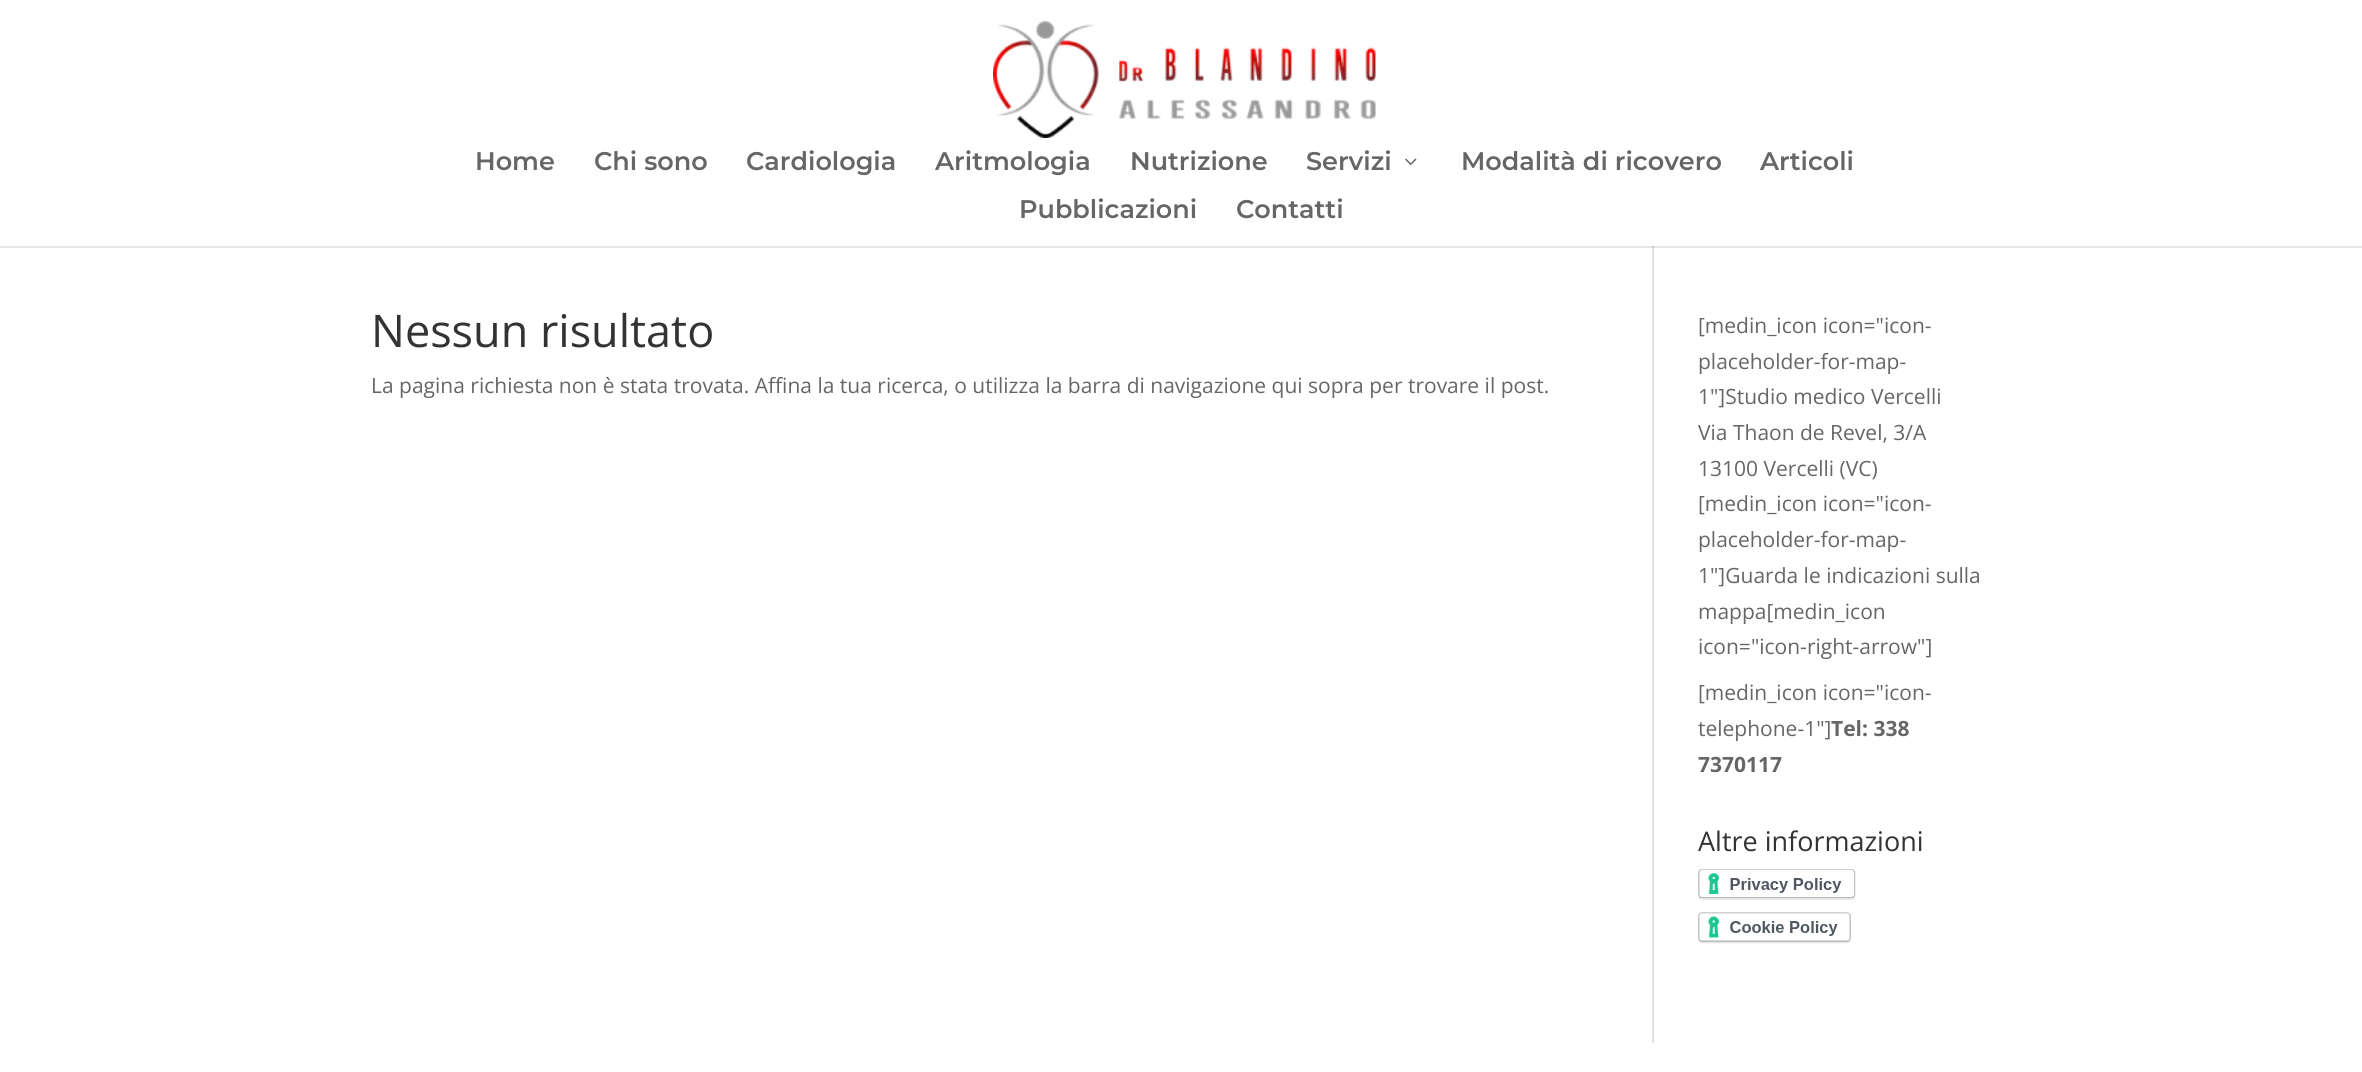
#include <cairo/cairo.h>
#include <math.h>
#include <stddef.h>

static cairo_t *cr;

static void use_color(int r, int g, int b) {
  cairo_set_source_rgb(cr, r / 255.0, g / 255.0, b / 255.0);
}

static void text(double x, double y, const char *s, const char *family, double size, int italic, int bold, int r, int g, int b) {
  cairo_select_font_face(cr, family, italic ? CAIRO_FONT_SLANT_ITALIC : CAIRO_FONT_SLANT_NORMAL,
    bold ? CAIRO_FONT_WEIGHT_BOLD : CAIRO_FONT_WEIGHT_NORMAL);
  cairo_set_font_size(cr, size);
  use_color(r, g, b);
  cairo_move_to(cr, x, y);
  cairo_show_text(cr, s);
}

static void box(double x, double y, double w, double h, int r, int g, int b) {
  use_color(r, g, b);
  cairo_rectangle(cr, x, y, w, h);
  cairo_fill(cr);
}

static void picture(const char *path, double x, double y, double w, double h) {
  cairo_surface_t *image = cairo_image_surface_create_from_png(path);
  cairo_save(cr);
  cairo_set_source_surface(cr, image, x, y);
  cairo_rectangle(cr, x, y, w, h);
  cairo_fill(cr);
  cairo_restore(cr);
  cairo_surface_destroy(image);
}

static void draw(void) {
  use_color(255, 255, 255);
  cairo_paint(cr);
  box(1652, 246, 2, 797, 226, 226, 226);
  cairo_set_source_rgba(cr, 0, 0, 0, 0.1);
  cairo_new_path(cr);
  cairo_move_to(cr, 0, 246);
  cairo_line_to(cr, 0, 248);
  cairo_line_to(cr, 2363, 248);
  cairo_line_to(cr, 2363, 2);
  cairo_line_to(cr, 2362, 2);
  cairo_line_to(cr, 2362, 246);
  cairo_close_path(cr);
  cairo_fill(cr);
  picture("img_01.png", 993, 20, 383, 118);
  picture("img_02.png", 1405, 158, 12, 7);
  picture("img_03.png", 1698, 869, 158, 31);
  picture("img_04.png", 1698, 912, 153, 32);
  text(475, 170, "Home", "Montserrat SemiBold", 25.5, 0, 0, 102, 102, 102);
  text(594, 170, "Chi sono", "Montserrat SemiBold", 25.5, 0, 0, 102, 102, 102);
  text(746, 170, "Cardiologia", "Montserrat SemiBold", 25.5, 0, 0, 102, 102, 102);
  text(935, 170, "Aritmologia", "Montserrat SemiBold", 25.5, 0, 0, 102, 102, 102);
  text(1130, 170, "Nutrizione", "Montserrat SemiBold", 25.5, 0, 0, 102, 102, 102);
  text(1306, 170, "Servizi", "Montserrat SemiBold", 25.5, 0, 0, 102, 102, 102);
  text(1461, 170, "Modalità di ricovero", "Montserrat SemiBold", 25.5, 0, 0, 102, 102, 102);
  text(1760, 170, "Articoli", "Montserrat SemiBold", 25.5, 0, 0, 102, 102, 102);
  text(1019, 218, "Pubblicazioni", "Montserrat SemiBold", 25.5, 0, 0, 102, 102, 102);
  text(1236, 218, "Contatti", "Montserrat SemiBold", 25.5, 0, 0, 102, 102, 102);
  text(371, 347, "Nessun risultato", "Open Sans", 45, 0, 0, 51, 51, 51);
  text(371, 393, "La pagina richiesta non è stata trovata. Affina la tua ricerca, o utilizza la barra di navigazione qui sopra per trovare il post.", "Open Sans", 21, 0, 0, 102, 102, 102);
  text(1698, 333, "[medin_icon icon=\"icon-", "Open Sans", 21, 0, 0, 102, 102, 102);
  text(1698, 369, "placeholder-for-map-", "Open Sans", 21, 0, 0, 102, 102, 102);
  text(1698, 404, "1\"]Studio medico Vercelli", "Open Sans", 21, 0, 0, 102, 102, 102);
  text(1698, 440, "Via Thaon de Revel, 3/A", "Open Sans", 21, 0, 0, 102, 102, 102);
  text(1698, 476, "13100 Vercelli (VC)", "Open Sans", 21, 0, 0, 102, 102, 102);
  text(1698, 511, "[medin_icon icon=\"icon-", "Open Sans", 21, 0, 0, 102, 102, 102);
  text(1698, 547, "placeholder-for-map-", "Open Sans", 21, 0, 0, 102, 102, 102);
  text(1698, 583, "1\"]Guarda le indicazioni sulla", "Open Sans", 21, 0, 0, 102, 102, 102);
  text(1698, 619, "mappa[medin_icon", "Open Sans", 21, 0, 0, 102, 102, 102);
  text(1698, 654, "icon=\"icon-right-arrow\"]", "Open Sans", 21, 0, 0, 102, 102, 102);
  text(1698, 700, "[medin_icon icon=\"icon-", "Open Sans", 21, 0, 0, 102, 102, 102);
  text(1698, 736, "telephone-1\"]", "Open Sans", 21, 0, 0, 102, 102, 102);
  text(1831, 736, "Tel: 338", "Open Sans", 21, 0, 1, 102, 102, 102);
  text(1698, 772, "7370117", "Open Sans", 21, 0, 1, 102, 102, 102);
  text(1698, 851, "Altre informazioni", "Open Sans", 27, 0, 0, 51, 51, 51);
}

int main(void) {
  cairo_surface_t *surface = cairo_image_surface_create(CAIRO_FORMAT_RGB24, 2362, 1072);
  cr = cairo_create(surface);
  cairo_font_options_t *options = cairo_font_options_create();
  cairo_font_options_set_hint_metrics(options, CAIRO_HINT_METRICS_OFF);
  cairo_font_options_set_hint_style(options, CAIRO_HINT_STYLE_NONE);
  cairo_set_font_options(cr, options);
  cairo_set_miter_limit(cr, 4);
  draw();
  cairo_surface_write_to_png(surface, "out.png");
  cairo_font_options_destroy(options);
  cairo_destroy(cr);
  cairo_surface_destroy(surface);
  return 0;
}
